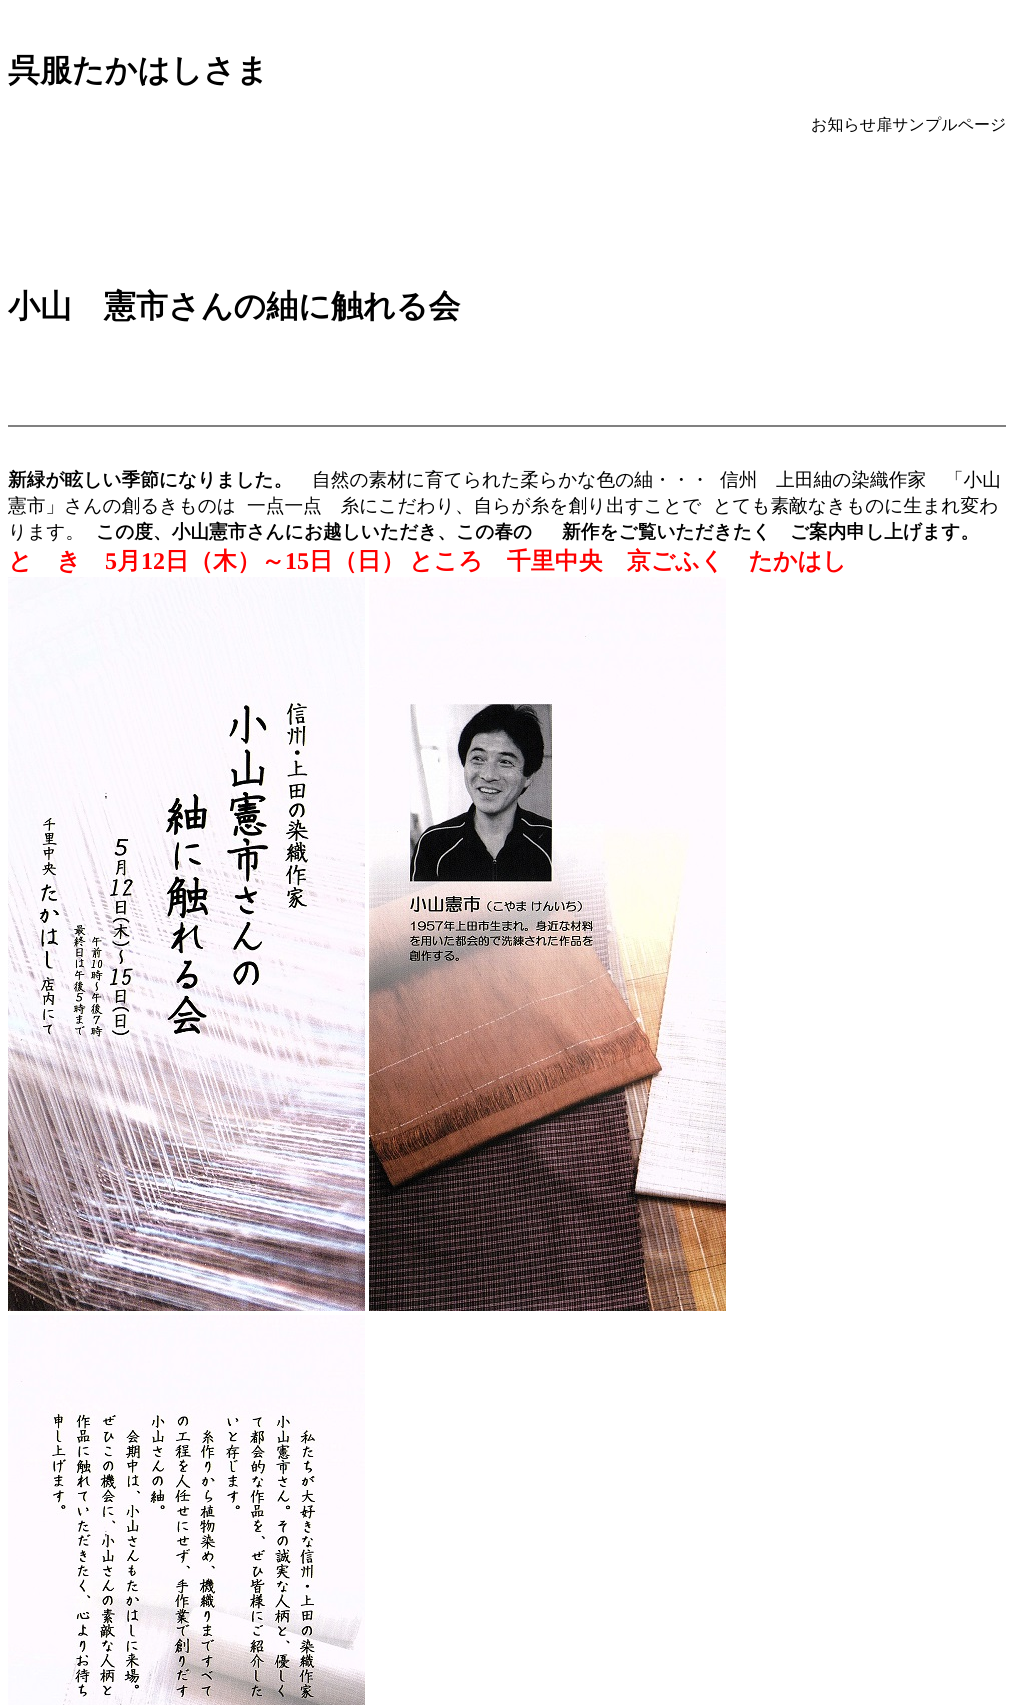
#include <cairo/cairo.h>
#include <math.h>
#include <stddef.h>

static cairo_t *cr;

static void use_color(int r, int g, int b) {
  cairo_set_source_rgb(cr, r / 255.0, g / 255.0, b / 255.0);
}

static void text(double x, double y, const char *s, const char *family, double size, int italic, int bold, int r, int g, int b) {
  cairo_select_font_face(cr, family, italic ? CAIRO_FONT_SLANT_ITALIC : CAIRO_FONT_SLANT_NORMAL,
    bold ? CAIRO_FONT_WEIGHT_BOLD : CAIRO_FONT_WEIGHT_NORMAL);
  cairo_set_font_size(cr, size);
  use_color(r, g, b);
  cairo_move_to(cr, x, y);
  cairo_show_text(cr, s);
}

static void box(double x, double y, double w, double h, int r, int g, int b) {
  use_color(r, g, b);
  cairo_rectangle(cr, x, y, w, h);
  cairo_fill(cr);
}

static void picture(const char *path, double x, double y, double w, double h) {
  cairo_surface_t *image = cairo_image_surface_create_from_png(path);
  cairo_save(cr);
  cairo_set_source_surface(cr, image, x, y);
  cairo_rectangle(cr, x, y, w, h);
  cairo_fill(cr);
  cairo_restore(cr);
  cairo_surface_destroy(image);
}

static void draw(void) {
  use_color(255, 255, 255);
  cairo_paint(cr);
  box(8, 425, 998, 2, 128, 128, 128);
  picture("img_01.png", 8, 577, 357, 734);
  picture("img_02.png", 369, 577, 357, 734);
  picture("img_03.png", 8, 1315, 357, 390);
  text(8, 81, "呉服たかはしさま", "WenQuanYi Zen Hei", 32, 0, 1, 0, 0, 0);
  text(811, 130, "お知らせ扉サンプルページ", "WenQuanYi Zen Hei Medium", 16, 0, 0, 0, 0, 0);
  text(8, 317, "小山　憲市さんの紬に触れる会", "WenQuanYi Zen Hei", 32, 0, 1, 0, 0, 0);
  text(8, 486, "新緑が眩しい季節になりました。", "WenQuanYi Zen Hei", 18.7, 0, 1, 0, 0, 0);
  text(312, 486, "自然の素材に育てられた柔らかな色の紬・・・", "WenQuanYi Zen Hei Medium", 18.7, 0, 0, 0, 0, 0);
  text(720, 486, "信州　上田紬の染織作家　「小山", "WenQuanYi Zen Hei Medium", 18.7, 0, 0, 0, 0, 0);
  text(8, 512, "憲市」さんの創るきものは", "WenQuanYi Zen Hei Medium", 18.7, 0, 0, 0, 0, 0);
  text(247, 512, "一点一点　糸にこだわり、自らが糸を創り出すことで", "WenQuanYi Zen Hei Medium", 18.7, 0, 0, 0, 0, 0);
  text(713, 512, "とても素敵なきものに生まれ変わ", "WenQuanYi Zen Hei Medium", 18.7, 0, 0, 0, 0, 0);
  text(8, 538, "ります。", "WenQuanYi Zen Hei Medium", 18.7, 0, 0, 0, 0, 0);
  text(96, 538, "この度、小山憲市さんにお越しいただき、この春の", "WenQuanYi Zen Hei", 18.7, 0, 1, 0, 0, 0);
  text(562, 538, "新作をご覧いただきたく　ご案内申し上げます。", "WenQuanYi Zen Hei", 18.7, 0, 1, 0, 0, 0);
  text(8, 569, "と　き", "WenQuanYi Zen Hei", 24, 0, 1, 255, 0, 0);
  text(105, 569, "5", "Liberation Serif", 24, 0, 1, 255, 0, 0);
  text(117, 569, "月", "WenQuanYi Zen Hei", 24, 0, 1, 255, 0, 0);
  text(141, 569, "12", "Liberation Serif", 24, 0, 1, 255, 0, 0);
  text(165, 569, "日（木）～", "WenQuanYi Zen Hei", 24, 0, 1, 255, 0, 0);
  text(285, 569, "15", "Liberation Serif", 24, 0, 1, 255, 0, 0);
  text(309, 569, "日（日）", "WenQuanYi Zen Hei", 24, 0, 1, 255, 0, 0);
  text(409, 569, "ところ　千里中央　京ごふく　たかはし", "WenQuanYi Zen Hei", 24, 0, 1, 255, 0, 0);
}

int main(void) {
  cairo_surface_t *surface = cairo_image_surface_create(CAIRO_FORMAT_RGB24, 1014, 1705);
  cr = cairo_create(surface);
  cairo_font_options_t *options = cairo_font_options_create();
  cairo_font_options_set_hint_metrics(options, CAIRO_HINT_METRICS_OFF);
  cairo_font_options_set_hint_style(options, CAIRO_HINT_STYLE_NONE);
  cairo_set_font_options(cr, options);
  cairo_set_miter_limit(cr, 4);
  draw();
  cairo_surface_write_to_png(surface, "out.png");
  cairo_font_options_destroy(options);
  cairo_destroy(cr);
  cairo_surface_destroy(surface);
  return 0;
}
